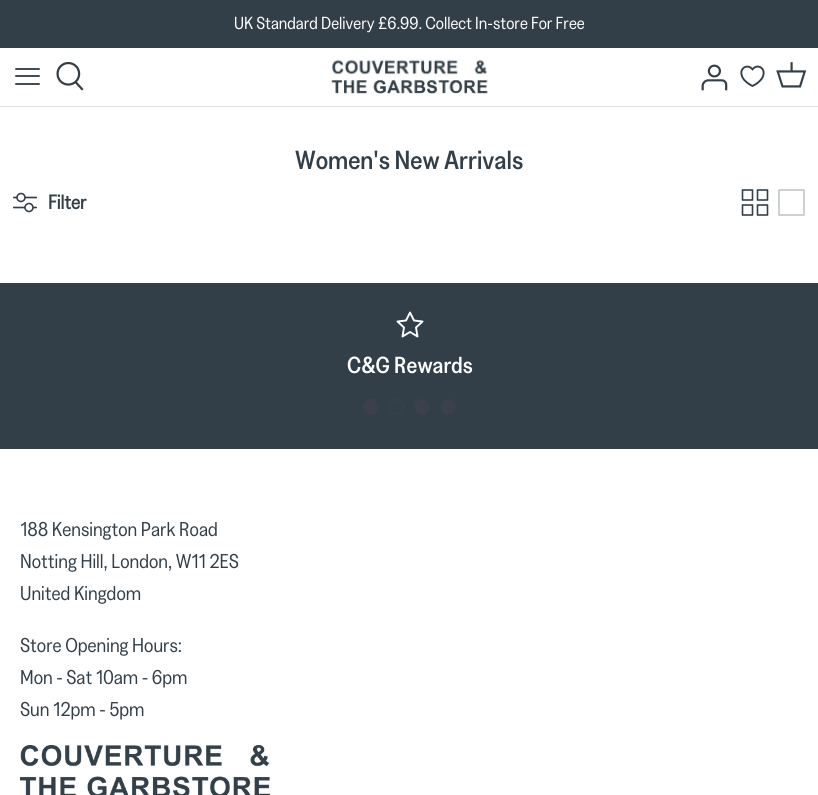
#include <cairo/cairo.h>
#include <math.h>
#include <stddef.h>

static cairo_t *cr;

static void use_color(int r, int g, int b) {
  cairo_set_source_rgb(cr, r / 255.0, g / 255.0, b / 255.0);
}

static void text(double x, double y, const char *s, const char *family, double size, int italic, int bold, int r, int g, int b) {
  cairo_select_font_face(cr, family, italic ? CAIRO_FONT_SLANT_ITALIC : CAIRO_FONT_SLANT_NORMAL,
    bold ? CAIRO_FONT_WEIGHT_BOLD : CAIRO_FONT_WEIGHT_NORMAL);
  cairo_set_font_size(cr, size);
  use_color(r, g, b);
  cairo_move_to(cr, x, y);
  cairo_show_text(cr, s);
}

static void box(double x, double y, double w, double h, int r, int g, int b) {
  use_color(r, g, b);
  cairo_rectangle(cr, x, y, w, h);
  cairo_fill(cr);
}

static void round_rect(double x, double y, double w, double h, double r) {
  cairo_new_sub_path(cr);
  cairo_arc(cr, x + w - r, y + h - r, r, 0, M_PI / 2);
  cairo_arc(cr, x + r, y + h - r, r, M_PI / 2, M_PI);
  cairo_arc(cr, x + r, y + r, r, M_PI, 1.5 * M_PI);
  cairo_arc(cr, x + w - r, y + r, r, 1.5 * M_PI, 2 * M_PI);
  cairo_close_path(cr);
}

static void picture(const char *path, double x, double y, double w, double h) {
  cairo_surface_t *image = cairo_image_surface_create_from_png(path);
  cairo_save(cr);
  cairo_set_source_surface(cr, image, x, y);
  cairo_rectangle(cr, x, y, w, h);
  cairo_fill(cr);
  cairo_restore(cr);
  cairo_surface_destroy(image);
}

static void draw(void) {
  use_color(255, 255, 255);
  cairo_paint(cr);
  box(0, 0, 818, 48, 51, 63, 72);
  box(0, 106, 818, 1, 226, 226, 226);
  cairo_new_path(cr);
  cairo_move_to(cr, 16, 76);
  cairo_line_to(cr, 39, 76);
  cairo_move_to(cr, 16, 69);
  cairo_line_to(cr, 39, 69);
  cairo_move_to(cr, 16, 84);
  cairo_line_to(cr, 39, 84);
  use_color(51, 63, 72);
  cairo_set_line_width(cr, 1.9);
  cairo_set_line_cap(cr, CAIRO_LINE_CAP_ROUND);
  cairo_set_line_join(cr, CAIRO_LINE_JOIN_ROUND);
  cairo_stroke(cr);
  picture("img_01.png", 56, 61, 28, 30);
  picture("img_02.png", 331, 59, 157, 35);
  picture("img_03.png", 701, 64, 27, 27);
  picture("img_04.png", 740, 65, 25, 22);
  picture("img_05.png", 776, 62, 30, 26);
  picture("img_06.png", 13, 192, 24, 21);
  picture("img_07.png", 741, 189, 28, 27);
  cairo_new_path(cr);
  cairo_move_to(cr, 779, 190);
  cairo_line_to(cr, 804, 190);
  cairo_line_to(cr, 804, 215);
  cairo_line_to(cr, 779, 215);
  cairo_line_to(cr, 779, 190);
  use_color(194, 197, 200);
  cairo_set_line_width(cr, 1.6);
  cairo_stroke(cr);
  box(0, 283, 818, 166, 51, 63, 72);
  cairo_new_path(cr);
  cairo_move_to(cr, 410, 312.5);
  cairo_line_to(cr, 414, 320.5);
  cairo_line_to(cr, 422.5, 321.5);
  cairo_line_to(cr, 416, 327.5);
  cairo_line_to(cr, 417.5, 336.5);
  cairo_line_to(cr, 410, 332);
  cairo_line_to(cr, 402.5, 336.5);
  cairo_line_to(cr, 404, 327.5);
  cairo_line_to(cr, 397.5, 321.5);
  cairo_line_to(cr, 406, 320.5);
  cairo_close_path(cr);
  use_color(255, 255, 255);
  cairo_set_line_width(cr, 1.9);
  cairo_stroke(cr);
  use_color(59, 64, 76);
  round_rect(363, 399, 15, 16, 7.5);
  cairo_fill(cr);
  round_rect(389.5, 399.5, 14, 15, 7);
  cairo_set_line_width(cr, 1);
  cairo_set_line_cap(cr, CAIRO_LINE_CAP_BUTT);
  cairo_set_line_join(cr, CAIRO_LINE_JOIN_MITER);
  cairo_stroke(cr);
  round_rect(415, 399, 15, 16, 7.5);
  cairo_fill(cr);
  round_rect(441, 399, 15, 16, 7.5);
  cairo_fill(cr);
  picture("img_08.png", 20, 745, 250, 50);
  text(234, 29, "UK Standard Delivery £6.99. Collect In-store For Free", "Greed", 17.5, 0, 0, 255, 255, 255);
  text(295, 169, "Women's New Arrivals", "Greed Medium", 26.25, 0, 0, 51, 63, 72);
  text(48, 209, "Filter", "Greed", 20, 0, 1, 51, 63, 72);
  text(347, 373, "C&G Rewards", "Greed Medium", 23.25, 0, 0, 255, 255, 255);
  text(20, 536, "188 Kensington Park Road", "Greed", 20, 0, 0, 51, 63, 72);
  text(20, 568, "Notting Hill, London, W11 2ES", "Greed", 20, 0, 0, 51, 63, 72);
  text(20, 600, "United Kingdom", "Greed", 20, 0, 0, 51, 63, 72);
  text(20, 652, "Store Opening Hours:", "Greed", 20, 0, 0, 51, 63, 72);
  text(20, 684, "Mon - Sat 10am - 6pm", "Greed", 20, 0, 0, 51, 63, 72);
  text(20, 716, "Sun 12pm - 5pm", "Greed", 20, 0, 0, 51, 63, 72);
}

int main(void) {
  cairo_surface_t *surface = cairo_image_surface_create(CAIRO_FORMAT_RGB24, 818, 795);
  cr = cairo_create(surface);
  cairo_font_options_t *options = cairo_font_options_create();
  cairo_font_options_set_hint_metrics(options, CAIRO_HINT_METRICS_OFF);
  cairo_font_options_set_hint_style(options, CAIRO_HINT_STYLE_NONE);
  cairo_set_font_options(cr, options);
  cairo_set_miter_limit(cr, 4);
  draw();
  cairo_surface_write_to_png(surface, "out.png");
  cairo_font_options_destroy(options);
  cairo_destroy(cr);
  cairo_surface_destroy(surface);
  return 0;
}
